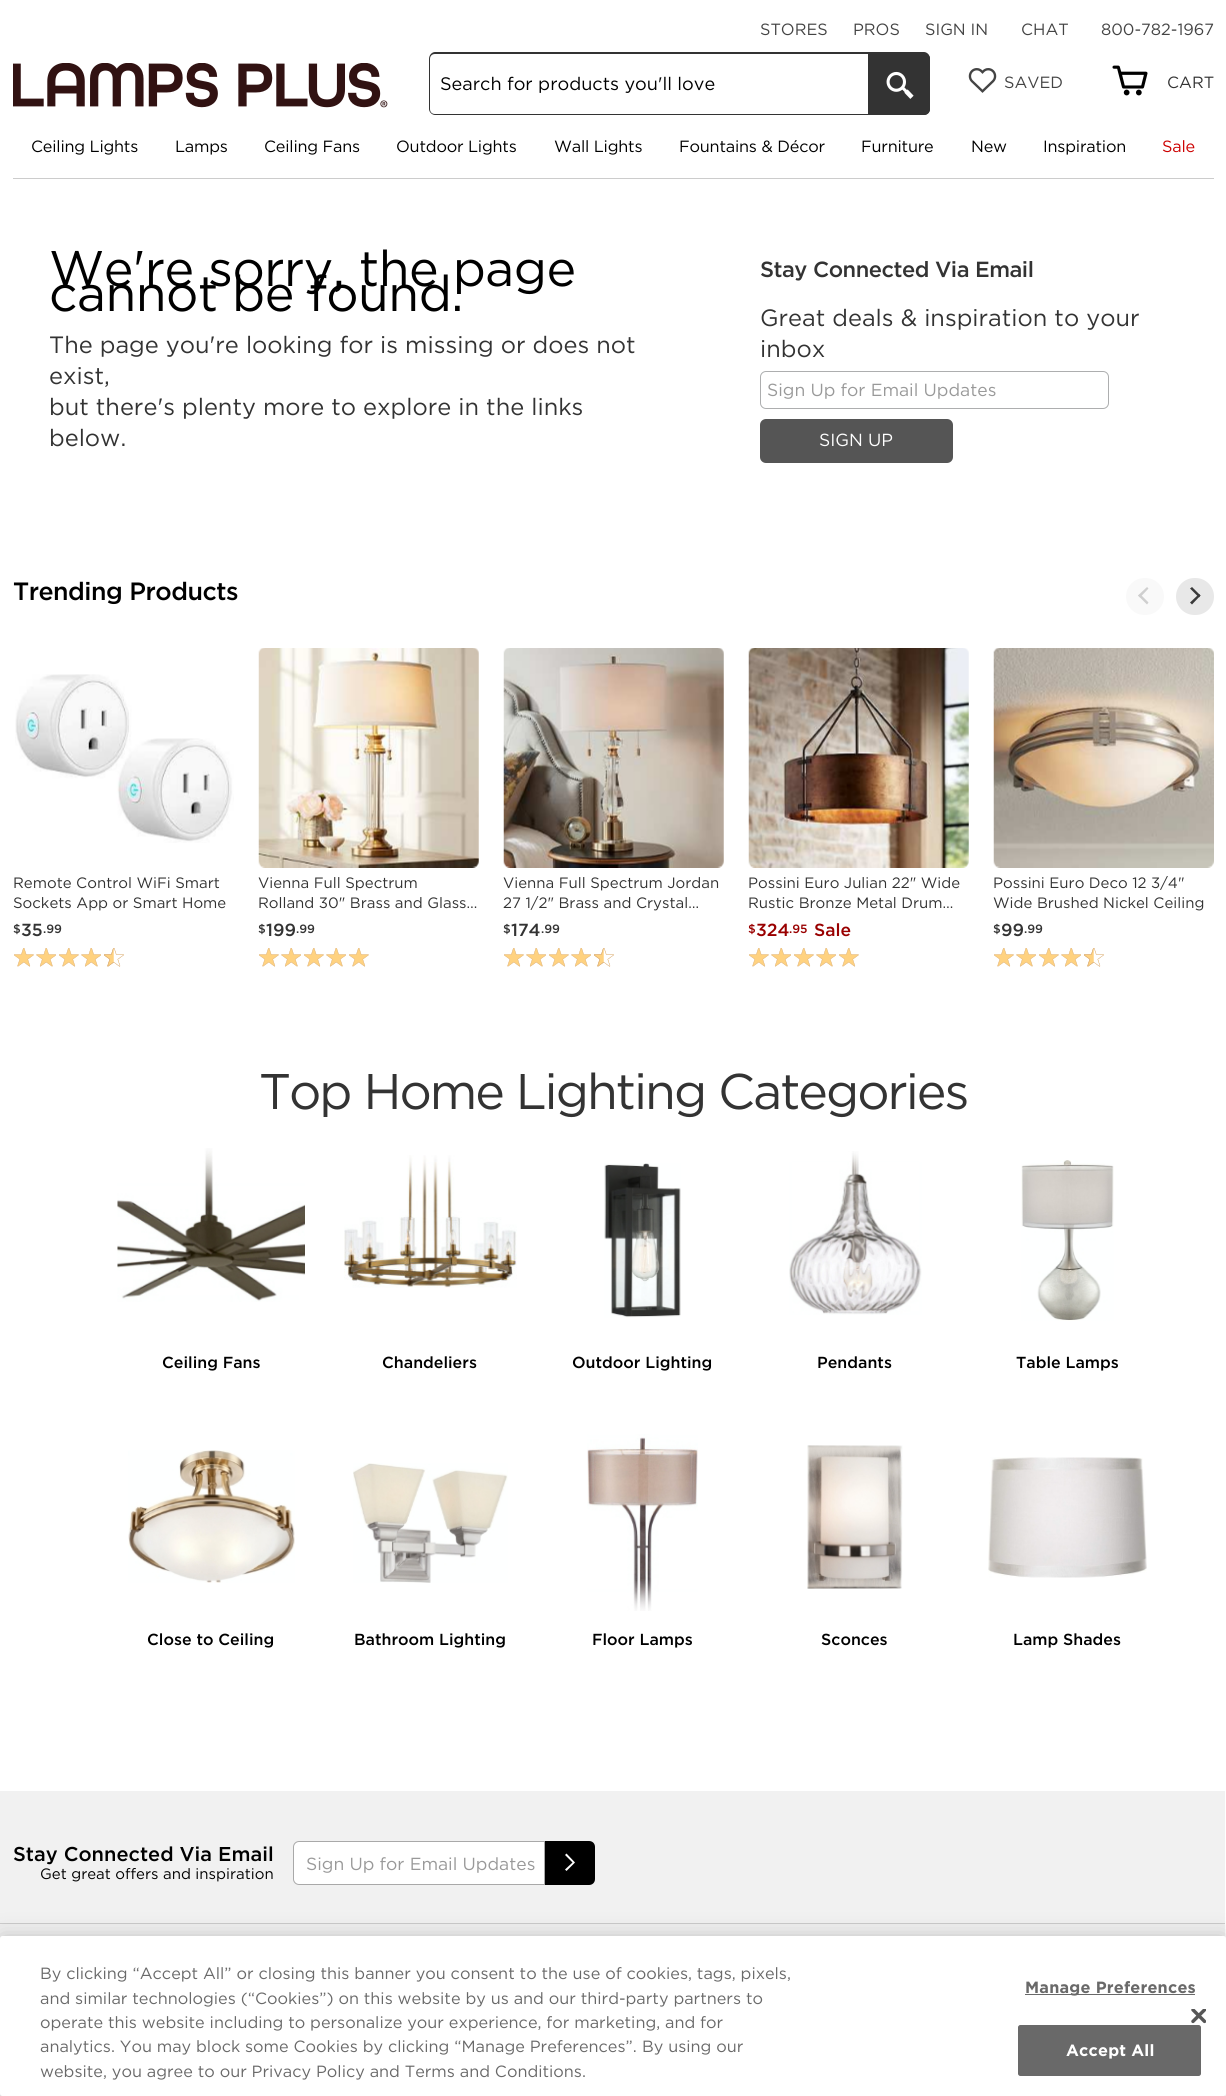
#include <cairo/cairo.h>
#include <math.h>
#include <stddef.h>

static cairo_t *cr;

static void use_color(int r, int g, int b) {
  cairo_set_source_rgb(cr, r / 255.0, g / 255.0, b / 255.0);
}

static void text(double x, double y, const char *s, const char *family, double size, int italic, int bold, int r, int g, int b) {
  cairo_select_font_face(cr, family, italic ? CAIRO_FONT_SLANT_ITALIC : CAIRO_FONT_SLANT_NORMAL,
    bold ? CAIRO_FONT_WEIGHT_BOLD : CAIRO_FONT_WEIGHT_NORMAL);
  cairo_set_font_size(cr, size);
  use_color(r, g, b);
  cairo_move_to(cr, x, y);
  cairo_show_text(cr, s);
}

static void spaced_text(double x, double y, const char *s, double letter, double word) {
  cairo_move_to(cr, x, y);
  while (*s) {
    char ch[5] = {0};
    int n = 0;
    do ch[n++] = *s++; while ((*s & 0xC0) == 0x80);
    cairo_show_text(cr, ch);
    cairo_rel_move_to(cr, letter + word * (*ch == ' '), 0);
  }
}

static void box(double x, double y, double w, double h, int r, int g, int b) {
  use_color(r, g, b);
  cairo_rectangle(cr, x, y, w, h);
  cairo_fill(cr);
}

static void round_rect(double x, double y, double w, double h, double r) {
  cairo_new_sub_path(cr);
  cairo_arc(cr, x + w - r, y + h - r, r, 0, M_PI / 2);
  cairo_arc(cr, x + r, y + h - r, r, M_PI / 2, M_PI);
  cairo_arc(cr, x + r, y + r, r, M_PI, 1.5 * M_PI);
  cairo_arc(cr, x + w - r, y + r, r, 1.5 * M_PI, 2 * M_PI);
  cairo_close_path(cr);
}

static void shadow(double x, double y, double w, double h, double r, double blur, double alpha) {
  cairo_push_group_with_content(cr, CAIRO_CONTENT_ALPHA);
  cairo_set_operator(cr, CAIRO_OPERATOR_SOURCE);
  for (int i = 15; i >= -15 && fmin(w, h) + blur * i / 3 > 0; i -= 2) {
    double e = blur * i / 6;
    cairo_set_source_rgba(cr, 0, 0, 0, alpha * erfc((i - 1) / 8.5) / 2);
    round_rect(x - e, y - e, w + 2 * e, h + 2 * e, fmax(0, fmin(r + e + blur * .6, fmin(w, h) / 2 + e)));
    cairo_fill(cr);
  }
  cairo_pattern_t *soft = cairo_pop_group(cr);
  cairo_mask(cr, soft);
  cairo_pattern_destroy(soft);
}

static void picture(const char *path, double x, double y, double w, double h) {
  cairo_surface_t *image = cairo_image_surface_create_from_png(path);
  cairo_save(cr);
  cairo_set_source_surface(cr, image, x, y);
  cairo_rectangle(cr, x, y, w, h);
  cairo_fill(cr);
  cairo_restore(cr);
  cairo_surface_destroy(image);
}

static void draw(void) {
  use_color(255, 255, 255);
  cairo_paint(cr);
  box(13, 178, 1201, 1, 204, 204, 204);
  picture("img_01.png", 13, 63, 375, 45);
  use_color(51, 51, 51);
  cairo_set_fill_rule(cr, CAIRO_FILL_RULE_EVEN_ODD);
  cairo_new_path(cr);
  cairo_move_to(cr, 435, 52);
  cairo_line_to(cr, 868, 52);
  cairo_line_to(cr, 868, 115);
  cairo_line_to(cr, 435, 115);
  cairo_curve_to(cr, 432, 115, 429, 112, 429, 109);
  cairo_line_to(cr, 429, 59);
  cairo_curve_to(cr, 429, 55, 432, 52, 435, 52);
  cairo_close_path(cr);
  cairo_move_to(cr, 435, 54);
  cairo_line_to(cr, 868, 54);
  cairo_line_to(cr, 868, 114);
  cairo_line_to(cr, 435, 114);
  cairo_curve_to(cr, 432, 114, 430, 112, 430, 109);
  cairo_line_to(cr, 430, 59);
  cairo_curve_to(cr, 430, 56, 432, 54, 435, 54);
  cairo_close_path(cr);
  cairo_fill(cr);
  cairo_new_path(cr);
  cairo_move_to(cr, 868, 53);
  cairo_line_to(cr, 924, 53);
  cairo_curve_to(cr, 927.5, 53, 930, 55.5, 930, 59);
  cairo_line_to(cr, 930, 109);
  cairo_curve_to(cr, 930, 112.5, 927.5, 115, 924, 115);
  cairo_line_to(cr, 868, 115);
  cairo_close_path(cr);
  cairo_fill(cr);
  cairo_new_path(cr);
  cairo_move_to(cr, 868, 52);
  cairo_line_to(cr, 924, 52);
  cairo_curve_to(cr, 927, 52, 930, 55, 930, 59);
  cairo_line_to(cr, 930, 109);
  cairo_curve_to(cr, 930, 112, 927, 115, 924, 115);
  cairo_line_to(cr, 868, 115);
  cairo_close_path(cr);
  cairo_move_to(cr, 868, 54);
  cairo_line_to(cr, 924, 54);
  cairo_curve_to(cr, 927, 54, 929, 56, 929, 59);
  cairo_line_to(cr, 929, 109);
  cairo_curve_to(cr, 929, 112, 927, 114, 924, 114);
  cairo_line_to(cr, 868, 114);
  cairo_close_path(cr);
  cairo_fill(cr);
  picture("img_02.png", 886, 71, 28, 28);
  picture("img_03.png", 968, 68, 29, 25);
  picture("img_04.png", 1112, 65, 36, 31);
  round_rect(760.5, 371.5, 348, 37, 5.5);
  use_color(173, 174, 175);
  cairo_set_line_width(cr, 1);
  cairo_stroke(cr);
  use_color(85, 85, 85);
  round_rect(760, 419, 193, 44, 6);
  cairo_fill(cr);
  use_color(249, 249, 249);
  round_rect(1126, 578, 38, 37, 18.5);
  cairo_fill(cr);
  use_color(207, 207, 207);
  cairo_set_fill_rule(cr, CAIRO_FILL_RULE_WINDING);
  cairo_new_path(cr);
  cairo_move_to(cr, 1148.5, 602.5);
  cairo_line_to(cr, 1147, 604.5);
  cairo_line_to(cr, 1138, 595.5);
  cairo_line_to(cr, 1140, 594);
  cairo_close_path(cr);
  cairo_fill(cr);
  cairo_new_path(cr);
  cairo_move_to(cr, 1148.5, 588.5);
  cairo_line_to(cr, 1140, 597.5);
  cairo_line_to(cr, 1138, 595.5);
  cairo_line_to(cr, 1147, 587);
  cairo_close_path(cr);
  cairo_fill(cr);
  use_color(232, 232, 232);
  round_rect(1176, 578, 38, 37, 18.5);
  cairo_fill(cr);
  use_color(58, 58, 58);
  cairo_new_path(cr);
  cairo_move_to(cr, 1190, 588.5);
  cairo_line_to(cr, 1192, 587);
  cairo_line_to(cr, 1200.5, 595.5);
  cairo_line_to(cr, 1199, 597.5);
  cairo_close_path(cr);
  cairo_fill(cr);
  cairo_new_path(cr);
  cairo_move_to(cr, 1190, 602.5);
  cairo_line_to(cr, 1199, 594);
  cairo_line_to(cr, 1200.5, 595.5);
  cairo_line_to(cr, 1192, 604.5);
  cairo_close_path(cr);
  cairo_fill(cr);
  picture("img_05.png", 15, 674, 219, 169);
  picture("img_06.png", 14, 948, 20, 19);
  picture("img_07.png", 36, 948, 20, 19);
  picture("img_06.png", 59, 948, 20, 19);
  picture("img_07.png", 81, 948, 20, 19);
  picture("img_08.png", 104, 948, 20, 19);
  picture("img_09.png", 258, 648, 221, 220);
  picture("img_06.png", 259, 948, 20, 19);
  picture("img_07.png", 281, 948, 20, 19);
  picture("img_06.png", 304, 948, 20, 19);
  picture("img_07.png", 326, 948, 20, 19);
  picture("img_06.png", 349, 948, 20, 19);
  picture("img_10.png", 503, 648, 221, 220);
  picture("img_06.png", 504, 948, 20, 19);
  picture("img_07.png", 526, 948, 20, 19);
  picture("img_06.png", 549, 948, 20, 19);
  picture("img_07.png", 571, 948, 20, 19);
  picture("img_08.png", 594, 948, 20, 19);
  picture("img_11.png", 748, 648, 221, 220);
  picture("img_06.png", 749, 948, 20, 19);
  picture("img_07.png", 771, 948, 20, 19);
  picture("img_06.png", 794, 948, 20, 19);
  picture("img_07.png", 816, 948, 20, 19);
  picture("img_06.png", 839, 948, 20, 19);
  picture("img_12.png", 993, 648, 221, 220);
  picture("img_06.png", 994, 948, 20, 19);
  picture("img_07.png", 1016, 948, 20, 19);
  picture("img_06.png", 1039, 948, 20, 19);
  picture("img_07.png", 1061, 948, 20, 19);
  picture("img_08.png", 1084, 948, 20, 19);
  picture("img_13.png", 117, 1148, 188, 154);
  picture("img_14.png", 344, 1155, 173, 133);
  picture("img_15.png", 604, 1163, 77, 155);
  picture("img_16.png", 789, 1151, 133, 164);
  picture("img_17.png", 1021, 1160, 93, 161);
  picture("img_18.png", 128, 1450, 167, 133);
  picture("img_19.png", 353, 1463, 155, 120);
  picture("img_20.png", 587, 1434, 111, 177);
  picture("img_21.png", 807, 1445, 96, 144);
  picture("img_22.png", 988, 1457, 159, 121);
  box(0, 1791, 1225, 305, 241, 241, 241);
  box(0, 1923, 1225, 1, 204, 204, 204);
  use_color(255, 255, 255);
  cairo_new_path(cr);
  cairo_move_to(cr, 299, 1841.5);
  cairo_line_to(cr, 544.5, 1841.5);
  cairo_line_to(cr, 544.5, 1884.5);
  cairo_line_to(cr, 299, 1884.5);
  cairo_curve_to(cr, 296, 1884.5, 293.5, 1882, 293.5, 1879);
  cairo_line_to(cr, 293.5, 1847);
  cairo_curve_to(cr, 293.5, 1844, 296, 1841.5, 299, 1841.5);
  cairo_close_path(cr);
  cairo_fill_preserve(cr);
  use_color(169, 169, 169);
  cairo_stroke(cr);
  use_color(0, 0, 0);
  cairo_new_path(cr);
  cairo_move_to(cr, 545, 1841);
  cairo_line_to(cr, 589, 1841);
  cairo_curve_to(cr, 592.5, 1841, 595, 1843.5, 595, 1847);
  cairo_line_to(cr, 595, 1879);
  cairo_curve_to(cr, 595, 1882.5, 592.5, 1885, 589, 1885);
  cairo_line_to(cr, 545, 1885);
  cairo_close_path(cr);
  cairo_fill(cr);
  use_color(255, 255, 255);
  cairo_new_path(cr);
  cairo_move_to(cr, 566.5, 1853.5);
  cairo_line_to(cr, 565, 1855);
  cairo_line_to(cr, 572.5, 1862.5);
  cairo_line_to(cr, 565, 1869.5);
  cairo_line_to(cr, 566.5, 1871);
  cairo_line_to(cr, 575, 1862.5);
  cairo_close_path(cr);
  cairo_fill(cr);
  use_color(0, 0, 0);
  shadow(0, 1936, 1226, 160, 2.5, 11, 0.2);
  use_color(255, 255, 255);
  round_rect(0, 1936, 1226, 160, 2.5);
  cairo_fill(cr);
  box(1025, 1994, 170, 1, 105, 105, 105);
  round_rect(1018.5, 2025.5, 182, 50, 2);
  cairo_fill_preserve(cr);
  cairo_stroke(cr);
  picture("img_23.png", 1191, 2009, 15, 15);
  text(760, 35, "STORES", "Gotham", 16.25, 0, 0, 68, 68, 68);
  text(853, 35, "PROS", "Gotham", 16.25, 0, 0, 68, 68, 68);
  text(925, 35, "SIGN IN", "Gotham", 16.25, 0, 0, 68, 68, 68);
  text(1021, 35, "CHAT", "Gotham", 16.25, 0, 0, 68, 68, 68);
  text(1101, 35, "800-782-1967", "Gotham", 16.25, 0, 0, 68, 68, 68);
  text(440, 90, "Search for products you'll love", "Gotham", 18.1, 0, 0, 0, 0, 0);
  text(1004, 88, "SAVED", "Gotham", 16.25, 0, 0, 68, 68, 68);
  text(1167, 88, "CART", "Gotham", 16.25, 0, 0, 51, 51, 51);
  use_color(0, 0, 0);
  spaced_text(31, 152, "Ceiling Lights", -0.2, 0);
  spaced_text(175, 152, "Lamps", -0.2, 0);
  spaced_text(264, 152, "Ceiling Fans", -0.2, 0);
  spaced_text(396, 152, "Outdoor Lights", -0.2, 0);
  spaced_text(554, 152, "Wall Lights", -0.2, 0);
  spaced_text(679, 152, "Fountains & Décor", -0.2, 0);
  spaced_text(861, 152, "Furniture", -0.2, 0);
  spaced_text(971, 152, "New", -0.2, 0);
  spaced_text(1043, 152, "Inspiration", -0.2, 0);
  use_color(204, 0, 0);
  spaced_text(1162, 152, "Sale", -0.2, 0);
  cairo_set_font_size(cr, 50);
  use_color(0, 0, 0);
  spaced_text(49, 286, "We're sorry, the page", -0.5, 0);
  spaced_text(49, 311, "cannot be found.", -0.5, 0);
  text(49, 353, "The page you're looking for is missing or does not", "Gotham", 23.6, 0, 0, 51, 51, 51);
  text(49, 384, "exist,", "Gotham", 23.6, 0, 0, 51, 51, 51);
  text(49, 415, "but there's plenty more to explore in the links", "Gotham", 23.6, 0, 0, 51, 51, 51);
  text(49, 446, "below.", "Gotham", 23.6, 0, 0, 51, 51, 51);
  cairo_select_font_face(cr, "Gotham Medium", CAIRO_FONT_SLANT_NORMAL, CAIRO_FONT_WEIGHT_NORMAL);
  cairo_set_font_size(cr, 21.9);
  spaced_text(760, 277, "Stay Connected Via Email", -0.5, 0);
  text(760, 326, "Great deals & inspiration to your", "Gotham", 23.6, 0, 0, 51, 51, 51);
  text(760, 357, "inbox", "Gotham", 23.6, 0, 0, 51, 51, 51);
  text(767, 396, "Sign Up for Email Updates", "Gotham", 17.5, 0, 0, 153, 153, 153);
  text(819, 446, "SIGN UP", "Gotham", 17.5, 0, 0, 255, 255, 255);
  cairo_select_font_face(cr, "Gotham Medium", CAIRO_FONT_SLANT_NORMAL, CAIRO_FONT_WEIGHT_NORMAL);
  cairo_set_font_size(cr, 25);
  use_color(0, 0, 0);
  spaced_text(13, 600, "Trending Products", -0.5, 0);
  text(13, 888, "Remote Control WiFi Smart", "Gotham", 15, 0, 0, 51, 51, 51);
  text(13, 908, "Sockets App or Smart Home", "Gotham", 15, 0, 0, 51, 51, 51);
  text(13, 933, "$", "Gotham Medium", 12, 0, 0, 51, 51, 51);
  text(21, 936, "35", "Gotham Medium", 17.5, 0, 0, 51, 51, 51);
  text(43, 933, ".99", "Gotham Medium", 12, 0, 0, 51, 51, 51);
  text(258, 888, "Vienna Full Spectrum", "Gotham", 15, 0, 0, 51, 51, 51);
  text(258, 908, "Rolland 30\" Brass and Glass…", "Gotham", 15, 0, 0, 51, 51, 51);
  text(258, 933, "$", "Gotham Medium", 12, 0, 0, 51, 51, 51);
  text(266, 936, "199", "Gotham Medium", 17.5, 0, 0, 51, 51, 51);
  text(296, 933, ".99", "Gotham Medium", 12, 0, 0, 51, 51, 51);
  text(503, 888, "Vienna Full Spectrum Jordan", "Gotham", 15, 0, 0, 51, 51, 51);
  text(503, 908, "27 1/2\" Brass and Crystal…", "Gotham", 15, 0, 0, 51, 51, 51);
  text(503, 933, "$", "Gotham Medium", 12, 0, 0, 51, 51, 51);
  text(511, 936, "174", "Gotham Medium", 17.5, 0, 0, 51, 51, 51);
  text(541, 933, ".99", "Gotham Medium", 12, 0, 0, 51, 51, 51);
  text(748, 888, "Possini Euro Julian 22\" Wide", "Gotham", 15, 0, 0, 51, 51, 51);
  text(748, 908, "Rustic Bronze Metal Drum…", "Gotham", 15, 0, 0, 51, 51, 51);
  text(748, 933, "$", "Gotham Medium", 12, 0, 0, 153, 0, 0);
  text(756, 936, "324", "Gotham Medium", 17.5, 0, 0, 153, 0, 0);
  text(789, 933, ".95", "Gotham Medium", 12, 0, 0, 153, 0, 0);
  text(814, 936, "Sale", "Gotham Medium", 17.5, 0, 0, 153, 0, 0);
  text(993, 888, "Possini Euro Deco 12 3/4\"", "Gotham", 15, 0, 0, 51, 51, 51);
  text(993, 908, "Wide Brushed Nickel Ceiling", "Gotham", 15, 0, 0, 51, 51, 51);
  text(993, 933, "$", "Gotham Medium", 12, 0, 0, 51, 51, 51);
  text(1001, 936, "99", "Gotham Medium", 17.5, 0, 0, 51, 51, 51);
  text(1024, 933, ".99", "Gotham Medium", 12, 0, 0, 51, 51, 51);
  cairo_select_font_face(cr, "Gotham", CAIRO_FONT_SLANT_NORMAL, CAIRO_FONT_WEIGHT_NORMAL);
  cairo_set_font_size(cr, 50);
  spaced_text(259, 1109, "Top Home Lighting Categories", -2, 0);
  text(162, 1368, "Ceiling Fans", "Gotham Medium", 16, 0, 0, 0, 0, 0);
  text(382, 1368, "Chandeliers", "Gotham Medium", 16, 0, 0, 0, 0, 0);
  text(572, 1368, "Outdoor Lighting", "Gotham Medium", 16, 0, 0, 0, 0, 0);
  text(817, 1368, "Pendants", "Gotham Medium", 16, 0, 0, 0, 0, 0);
  text(1016, 1368, "Table Lamps", "Gotham Medium", 16, 0, 0, 0, 0, 0);
  text(147, 1645, "Close to Ceiling", "Gotham Medium", 16, 0, 0, 0, 0, 0);
  text(354, 1645, "Bathroom Lighting", "Gotham Medium", 16, 0, 0, 0, 0, 0);
  text(592, 1645, "Floor Lamps", "Gotham Medium", 16, 0, 0, 0, 0, 0);
  text(821, 1645, "Sconces", "Gotham Medium", 16, 0, 0, 0, 0, 0);
  text(1013, 1645, "Lamp Shades", "Gotham Medium", 16, 0, 0, 0, 0, 0);
  text(13, 1861, "Stay Connected Via Email", "Gotham Medium", 20, 0, 0, 0, 0, 0);
  text(40, 1879, "Get great offers and inspiration", "Gotham", 15, 0, 0, 0, 0, 0);
  text(306, 1870, "Sign Up for Email Updates", "Gotham", 17.5, 0, 0, 153, 153, 153);
  text(40, 1979, "By clicking “Accept All” or closing this banner you consent to the use of cookies, tags, pixels,", "Gotham", 16.25, 0, 0, 105, 105, 105);
  text(40, 2004, "and similar technologies (“Cookies”) on this website by us and our third-party partners to", "Gotham", 16.25, 0, 0, 105, 105, 105);
  text(40, 2028, "operate this website including to personalize your experience, for marketing, and for", "Gotham", 16.25, 0, 0, 105, 105, 105);
  text(40, 2052, "analytics. You may block some Cookies by clicking “Manage Preferences”.", "Gotham", 16.25, 0, 0, 105, 105, 105);
  text(642, 2052, "By using our", "Gotham", 16.25, 0, 0, 105, 105, 105);
  text(40, 2077, "website, you agree to our Privacy Policy and Terms and Conditions.", "Gotham", 16.25, 0, 0, 105, 105, 105);
  cairo_select_font_face(cr, "Gotham", CAIRO_FONT_SLANT_NORMAL, CAIRO_FONT_WEIGHT_BOLD);
  spaced_text(1025, 1993, "Manage Preferences", 0.2, 0);
  use_color(255, 255, 255);
  spaced_text(1066, 2056, "Accept All", 0.2, 0);
}

int main(void) {
  cairo_surface_t *surface = cairo_image_surface_create(CAIRO_FORMAT_RGB24, 1226, 2096);
  cr = cairo_create(surface);
  cairo_font_options_t *options = cairo_font_options_create();
  cairo_font_options_set_hint_metrics(options, CAIRO_HINT_METRICS_OFF);
  cairo_font_options_set_hint_style(options, CAIRO_HINT_STYLE_NONE);
  cairo_set_font_options(cr, options);
  cairo_set_miter_limit(cr, 4);
  draw();
  cairo_surface_write_to_png(surface, "out.png");
  cairo_font_options_destroy(options);
  cairo_destroy(cr);
  cairo_surface_destroy(surface);
  return 0;
}
